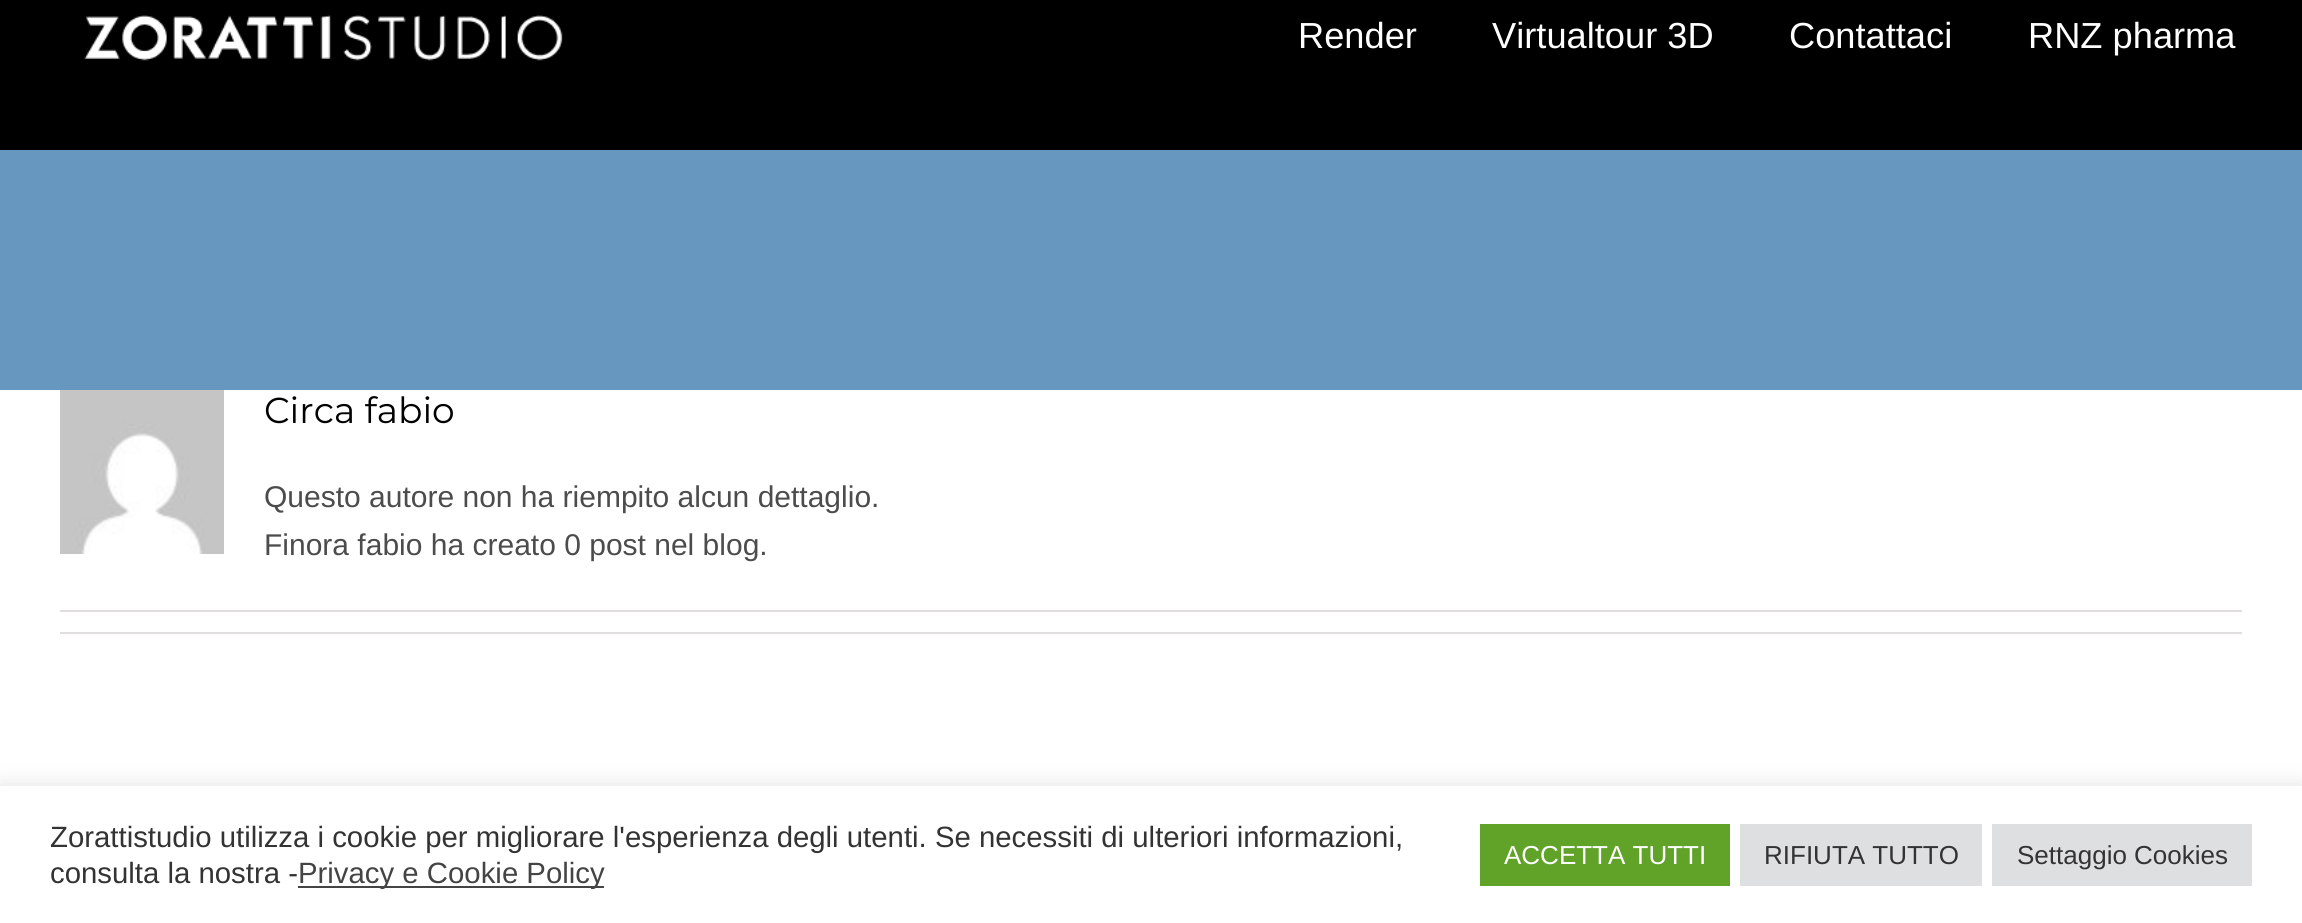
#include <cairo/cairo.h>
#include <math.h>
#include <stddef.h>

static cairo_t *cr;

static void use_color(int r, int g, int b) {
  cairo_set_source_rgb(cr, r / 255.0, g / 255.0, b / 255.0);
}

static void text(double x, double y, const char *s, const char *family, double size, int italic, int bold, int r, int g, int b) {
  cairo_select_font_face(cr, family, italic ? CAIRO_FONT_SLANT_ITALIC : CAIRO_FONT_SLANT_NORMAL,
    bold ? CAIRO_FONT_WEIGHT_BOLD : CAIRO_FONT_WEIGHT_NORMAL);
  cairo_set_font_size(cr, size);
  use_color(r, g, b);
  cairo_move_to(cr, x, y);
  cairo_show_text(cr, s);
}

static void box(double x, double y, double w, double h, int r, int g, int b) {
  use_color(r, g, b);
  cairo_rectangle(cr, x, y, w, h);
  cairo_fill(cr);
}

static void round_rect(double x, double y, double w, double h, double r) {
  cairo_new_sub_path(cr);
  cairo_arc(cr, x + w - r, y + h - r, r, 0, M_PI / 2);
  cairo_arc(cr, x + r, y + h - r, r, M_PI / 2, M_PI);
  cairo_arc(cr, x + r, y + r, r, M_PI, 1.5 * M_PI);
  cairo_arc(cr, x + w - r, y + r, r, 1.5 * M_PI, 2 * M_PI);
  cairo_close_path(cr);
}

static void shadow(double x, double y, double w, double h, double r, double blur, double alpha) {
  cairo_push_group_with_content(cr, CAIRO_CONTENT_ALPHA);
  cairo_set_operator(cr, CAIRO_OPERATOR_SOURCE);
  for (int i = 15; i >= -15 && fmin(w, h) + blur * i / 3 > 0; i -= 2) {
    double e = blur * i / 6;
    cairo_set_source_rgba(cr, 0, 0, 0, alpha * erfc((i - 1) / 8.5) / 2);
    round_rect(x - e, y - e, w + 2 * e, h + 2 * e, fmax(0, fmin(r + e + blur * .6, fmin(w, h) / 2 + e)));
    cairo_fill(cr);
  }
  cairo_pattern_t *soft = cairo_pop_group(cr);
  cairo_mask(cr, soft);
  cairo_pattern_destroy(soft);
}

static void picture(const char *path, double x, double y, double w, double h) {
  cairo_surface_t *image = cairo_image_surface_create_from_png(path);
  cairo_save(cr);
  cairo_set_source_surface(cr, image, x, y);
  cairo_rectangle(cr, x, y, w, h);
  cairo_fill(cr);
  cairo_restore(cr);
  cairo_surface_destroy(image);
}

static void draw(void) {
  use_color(255, 255, 255);
  cairo_paint(cr);
  box(0, 0, 2302, 150, 0, 0, 0);
  picture("img_01.png", 84, 15, 479, 46);
  box(0, 150, 2302, 240, 103, 150, 191);
  picture("img_02.png", 60, 390, 164, 164);
  box(60, 610, 2182, 2, 224, 222, 222);
  box(60, 632, 2182, 2, 224, 222, 222);
  use_color(172, 171, 171);
  shadow(0, 784, 2302, 138, 0, 10, 0.3);
  box(0, 786, 2302, 137, 255, 255, 255);
  box(298, 886, 306, 2, 68, 68, 68);
  box(1480, 824, 250, 62, 97, 162, 41);
  box(1740, 824, 242, 62, 222, 223, 224);
  box(1992, 824, 260, 62, 222, 223, 224);
  text(1298, 48, "Render", "Liberation Sans", 36.25, 0, 0, 255, 255, 255);
  text(1492, 48, "Virtualtour 3D", "Liberation Sans", 36.25, 0, 0, 255, 255, 255);
  text(1789, 48, "Contattaci", "Liberation Sans", 36.25, 0, 0, 255, 255, 255);
  text(2028, 48, "RNZ pharma", "Liberation Sans", 36.25, 0, 0, 255, 255, 255);
  text(264, 423, "Circa fabio", "Montserrat", 36, 0, 0, 0, 0, 0);
  text(264, 507, "Questo autore non ha riempito alcun dettaglio.", "Liberation Sans", 30, 0, 0, 76, 76, 76);
  text(264, 555, "Finora fabio ha creato 0 post nel blog.", "Liberation Sans", 30, 0, 0, 76, 76, 76);
  text(50, 847, "Zorattistudio utilizza i cookie per migliorare l'esperienza degli utenti. Se necessiti di ulteriori informazioni,", "Liberation Sans", 29.35, 0, 0, 51, 51, 51);
  text(50, 883, "consulta la nostra -", "Liberation Sans", 29.35, 0, 0, 51, 51, 51);
  text(298, 883, "Privacy e Cookie Policy", "Liberation Sans", 29.35, 0, 0, 68, 68, 68);
  text(1504, 864, "ACCETTA TUTTI", "Liberation Sans", 26, 0, 0, 255, 255, 255);
  text(1764, 864, "RIFIUTA TUTTO", "Liberation Sans", 26, 0, 0, 51, 51, 51);
  text(2017, 864, "Settaggio Cookies", "Liberation Sans", 26, 0, 0, 51, 51, 51);
}

int main(void) {
  cairo_surface_t *surface = cairo_image_surface_create(CAIRO_FORMAT_RGB24, 2302, 923);
  cr = cairo_create(surface);
  cairo_font_options_t *options = cairo_font_options_create();
  cairo_font_options_set_hint_metrics(options, CAIRO_HINT_METRICS_OFF);
  cairo_font_options_set_hint_style(options, CAIRO_HINT_STYLE_NONE);
  cairo_set_font_options(cr, options);
  cairo_set_miter_limit(cr, 4);
  draw();
  cairo_surface_write_to_png(surface, "out.png");
  cairo_font_options_destroy(options);
  cairo_destroy(cr);
  cairo_surface_destroy(surface);
  return 0;
}
